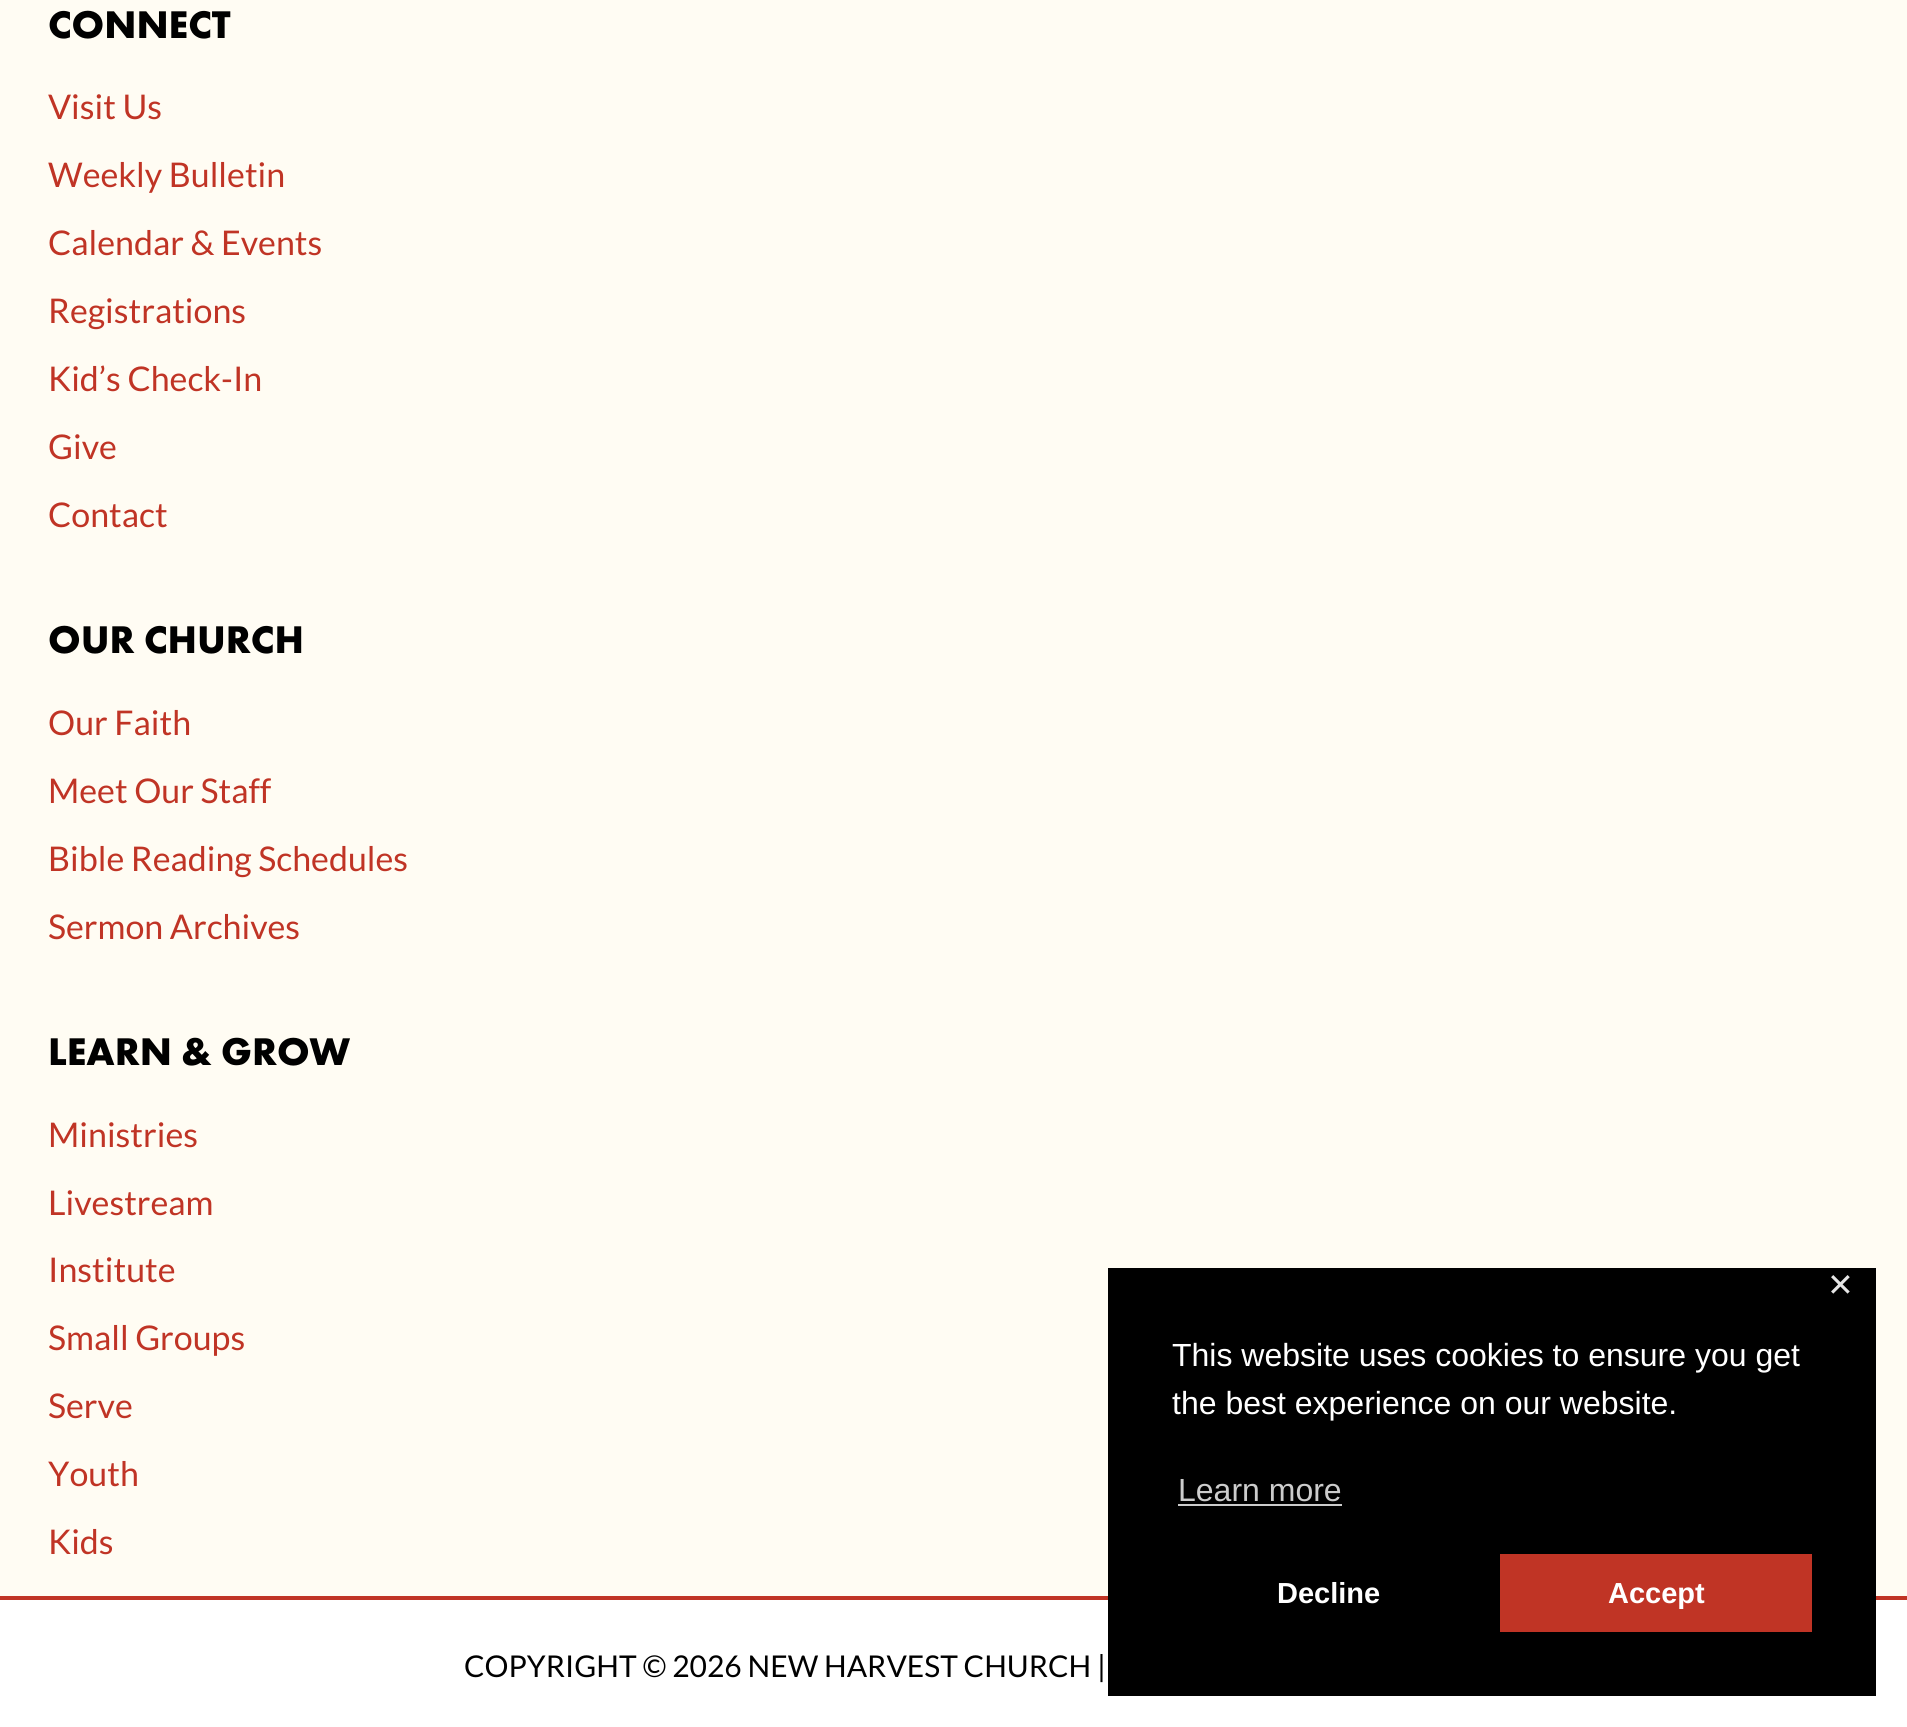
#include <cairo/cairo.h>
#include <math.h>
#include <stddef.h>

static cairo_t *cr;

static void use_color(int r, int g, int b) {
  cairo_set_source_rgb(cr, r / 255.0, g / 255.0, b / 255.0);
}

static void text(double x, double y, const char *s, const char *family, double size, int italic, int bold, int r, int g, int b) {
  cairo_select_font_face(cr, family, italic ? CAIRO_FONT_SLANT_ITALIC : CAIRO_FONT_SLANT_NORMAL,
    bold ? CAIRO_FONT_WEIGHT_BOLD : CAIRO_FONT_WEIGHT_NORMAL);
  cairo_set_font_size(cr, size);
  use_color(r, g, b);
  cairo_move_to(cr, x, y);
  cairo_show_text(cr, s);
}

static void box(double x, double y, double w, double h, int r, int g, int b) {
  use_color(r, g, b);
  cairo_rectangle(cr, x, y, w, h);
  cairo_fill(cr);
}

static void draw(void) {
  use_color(255, 255, 255);
  cairo_paint(cr);
  box(0, 0, 1907, 1596, 255, 252, 243);
  box(0, 1596, 1907, 4, 192, 52, 37);
  box(1108, 1268, 768, 428, 0, 0, 0);
  box(1178, 1504, 164, 2, 204, 204, 204);
  box(1500, 1554, 312, 78, 192, 52, 37);
  text(48, 38, "CONNECT", "Futura PT", 40, 0, 1, 0, 0, 0);
  text(48, 119, "Visit Us", "Lato", 34, 0, 0, 192, 52, 37);
  text(48, 187, "Weekly Bulletin", "Lato", 34, 0, 0, 192, 52, 37);
  text(48, 255, "Calendar & Events", "Lato", 34, 0, 0, 192, 52, 37);
  text(48, 323, "Registrations", "Lato", 34, 0, 0, 192, 52, 37);
  text(48, 391, "Kid’s Check-In", "Lato", 34, 0, 0, 192, 52, 37);
  text(48, 459, "Give", "Lato", 34, 0, 0, 192, 52, 37);
  text(48, 527, "Contact", "Lato", 34, 0, 0, 192, 52, 37);
  text(48, 653, "OUR CHURCH", "Futura PT", 40, 0, 1, 0, 0, 0);
  text(48, 735, "Our Faith", "Lato", 34, 0, 0, 192, 52, 37);
  text(48, 803, "Meet Our Staff", "Lato", 34, 0, 0, 192, 52, 37);
  text(48, 871, "Bible Reading Schedules", "Lato", 34, 0, 0, 192, 52, 37);
  text(48, 939, "Sermon Archives", "Lato", 34, 0, 0, 192, 52, 37);
  text(48, 1065, "LEARN & GROW", "Futura PT", 40, 0, 1, 0, 0, 0);
  text(48, 1147, "Ministries", "Lato", 34, 0, 0, 192, 52, 37);
  text(48, 1215, "Livestream", "Lato", 34, 0, 0, 192, 52, 37);
  text(48, 1282, "Institute", "Lato", 34, 0, 0, 192, 52, 37);
  text(48, 1350, "Small Groups", "Lato", 34, 0, 0, 192, 52, 37);
  text(48, 1418, "Serve", "Lato", 34, 0, 0, 192, 52, 37);
  text(48, 1486, "Youth", "Lato", 34, 0, 0, 192, 52, 37);
  text(48, 1554, "Kids", "Lato", 34, 0, 0, 192, 52, 37);
  text(464, 1677, "COPYRIGHT © 2026 NEW HARVEST CHURCH |", "Lato", 30, 0, 0, 0, 0, 0);
  text(1827, 1296, "✕", "DejaVu Sans", 32, 0, 0, 230, 230, 230);
  text(1172, 1366, "This website uses cookies to ensure you get", "Liberation Sans", 32, 0, 0, 255, 255, 255);
  text(1172, 1414, "the best experience on our website.", "Liberation Sans", 32, 0, 0, 255, 255, 255);
  text(1178, 1501, "Learn more", "Liberation Sans", 32, 0, 0, 204, 204, 204);
  text(1277, 1603, "Decline", "Liberation Sans", 29, 0, 1, 255, 255, 255);
  text(1608, 1603, "Accept", "Liberation Sans", 29, 0, 1, 255, 255, 255);
}

int main(void) {
  cairo_surface_t *surface = cairo_image_surface_create(CAIRO_FORMAT_RGB24, 1907, 1727);
  cr = cairo_create(surface);
  cairo_font_options_t *options = cairo_font_options_create();
  cairo_font_options_set_hint_metrics(options, CAIRO_HINT_METRICS_OFF);
  cairo_font_options_set_hint_style(options, CAIRO_HINT_STYLE_NONE);
  cairo_set_font_options(cr, options);
  cairo_set_miter_limit(cr, 4);
  draw();
  cairo_surface_write_to_png(surface, "out.png");
  cairo_font_options_destroy(options);
  cairo_destroy(cr);
  cairo_surface_destroy(surface);
  return 0;
}
